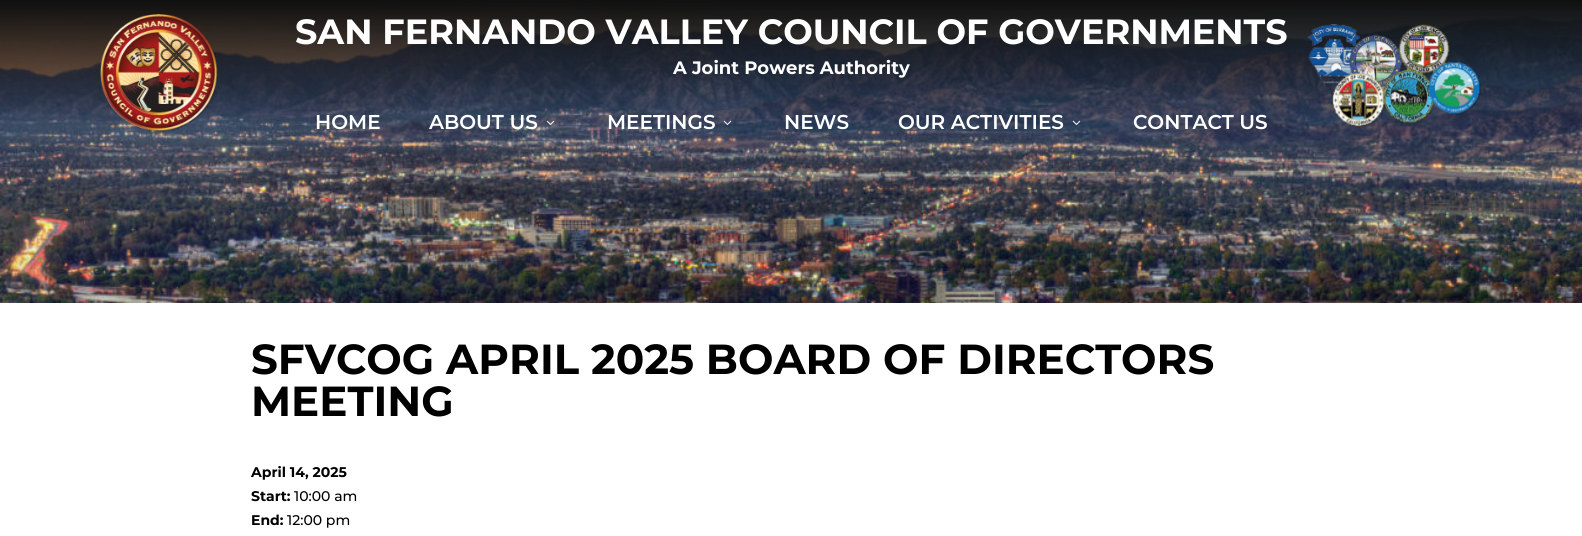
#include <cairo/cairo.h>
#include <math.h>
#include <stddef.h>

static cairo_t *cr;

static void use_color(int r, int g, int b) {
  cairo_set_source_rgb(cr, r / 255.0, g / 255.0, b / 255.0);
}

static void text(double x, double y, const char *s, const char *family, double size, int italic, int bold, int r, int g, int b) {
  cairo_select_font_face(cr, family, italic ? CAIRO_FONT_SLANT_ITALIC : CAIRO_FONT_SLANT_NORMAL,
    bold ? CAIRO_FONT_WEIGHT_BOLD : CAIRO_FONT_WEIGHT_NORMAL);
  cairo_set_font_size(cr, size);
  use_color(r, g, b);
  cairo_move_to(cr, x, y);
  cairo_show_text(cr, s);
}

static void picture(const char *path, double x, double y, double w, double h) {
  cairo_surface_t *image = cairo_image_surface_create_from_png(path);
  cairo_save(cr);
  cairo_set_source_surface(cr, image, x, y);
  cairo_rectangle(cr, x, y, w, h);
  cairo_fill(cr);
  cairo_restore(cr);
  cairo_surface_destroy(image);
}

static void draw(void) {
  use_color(255, 255, 255);
  cairo_paint(cr);
  picture("img_06.png", 0, 0, 1582, 303);
  picture("img_01.png", 100, 14, 118, 118);
  picture("img_02.png", 1308, 24, 173, 104);
  picture("img_03.png", 546, 120, 9, 5);
  picture("img_04.png", 723, 120, 9, 5);
  picture("img_05.png", 1072, 120, 9, 5);
  text(295, 44, "SAN FERNANDO VALLEY COUNCIL OF GOVERNMENTS", "Montserrat", 35, 0, 1, 255, 255, 255);
  text(673, 74, "A Joint Powers Authority", "Montserrat", 18, 0, 1, 255, 255, 255);
  text(315, 129, "HOME", "Montserrat SemiBold", 20, 0, 0, 255, 255, 255);
  text(429, 129, "ABOUT US", "Montserrat SemiBold", 20, 0, 0, 255, 255, 255);
  text(607, 129, "MEETINGS", "Montserrat SemiBold", 20, 0, 0, 255, 255, 255);
  text(784, 129, "NEWS", "Montserrat SemiBold", 20, 0, 0, 255, 255, 255);
  text(898, 129, "OUR ACTIVITIES", "Montserrat SemiBold", 20, 0, 0, 255, 255, 255);
  text(1133, 129, "CONTACT US", "Montserrat SemiBold", 20, 0, 0, 255, 255, 255);
  text(251, 374, "SFVCOG APRIL 2025 BOARD OF DIRECTORS", "Montserrat", 42, 0, 1, 0, 0, 0);
  text(251, 416, "MEETING", "Montserrat", 42, 0, 1, 0, 0, 0);
  text(251, 477, "April 14, 2025", "Montserrat", 14, 0, 1, 0, 0, 0);
  text(251, 501, "Start:", "Montserrat", 14, 0, 1, 0, 0, 0);
  text(294, 501, "10:00 am", "Montserrat Medium", 14, 0, 0, 0, 0, 0);
  text(251, 525, "End:", "Montserrat", 14, 0, 1, 0, 0, 0);
  text(287, 525, "12:00 pm", "Montserrat Medium", 14, 0, 0, 0, 0, 0);
}

int main(void) {
  cairo_surface_t *surface = cairo_image_surface_create(CAIRO_FORMAT_RGB24, 1582, 536);
  cr = cairo_create(surface);
  cairo_font_options_t *options = cairo_font_options_create();
  cairo_font_options_set_hint_metrics(options, CAIRO_HINT_METRICS_OFF);
  cairo_font_options_set_hint_style(options, CAIRO_HINT_STYLE_NONE);
  cairo_set_font_options(cr, options);
  cairo_set_miter_limit(cr, 4);
  draw();
  cairo_surface_write_to_png(surface, "out.png");
  cairo_font_options_destroy(options);
  cairo_destroy(cr);
  cairo_surface_destroy(surface);
  return 0;
}
